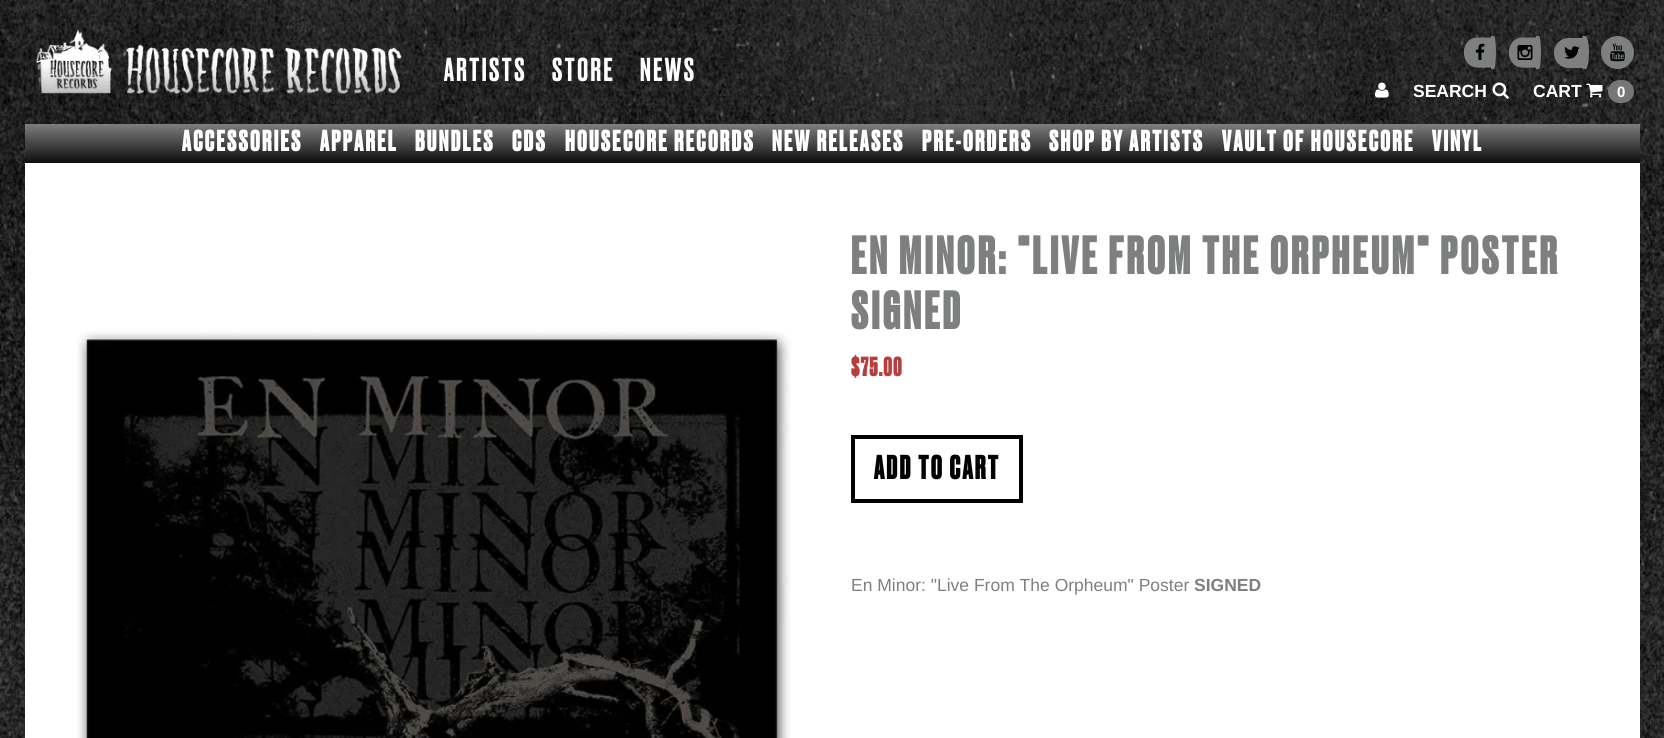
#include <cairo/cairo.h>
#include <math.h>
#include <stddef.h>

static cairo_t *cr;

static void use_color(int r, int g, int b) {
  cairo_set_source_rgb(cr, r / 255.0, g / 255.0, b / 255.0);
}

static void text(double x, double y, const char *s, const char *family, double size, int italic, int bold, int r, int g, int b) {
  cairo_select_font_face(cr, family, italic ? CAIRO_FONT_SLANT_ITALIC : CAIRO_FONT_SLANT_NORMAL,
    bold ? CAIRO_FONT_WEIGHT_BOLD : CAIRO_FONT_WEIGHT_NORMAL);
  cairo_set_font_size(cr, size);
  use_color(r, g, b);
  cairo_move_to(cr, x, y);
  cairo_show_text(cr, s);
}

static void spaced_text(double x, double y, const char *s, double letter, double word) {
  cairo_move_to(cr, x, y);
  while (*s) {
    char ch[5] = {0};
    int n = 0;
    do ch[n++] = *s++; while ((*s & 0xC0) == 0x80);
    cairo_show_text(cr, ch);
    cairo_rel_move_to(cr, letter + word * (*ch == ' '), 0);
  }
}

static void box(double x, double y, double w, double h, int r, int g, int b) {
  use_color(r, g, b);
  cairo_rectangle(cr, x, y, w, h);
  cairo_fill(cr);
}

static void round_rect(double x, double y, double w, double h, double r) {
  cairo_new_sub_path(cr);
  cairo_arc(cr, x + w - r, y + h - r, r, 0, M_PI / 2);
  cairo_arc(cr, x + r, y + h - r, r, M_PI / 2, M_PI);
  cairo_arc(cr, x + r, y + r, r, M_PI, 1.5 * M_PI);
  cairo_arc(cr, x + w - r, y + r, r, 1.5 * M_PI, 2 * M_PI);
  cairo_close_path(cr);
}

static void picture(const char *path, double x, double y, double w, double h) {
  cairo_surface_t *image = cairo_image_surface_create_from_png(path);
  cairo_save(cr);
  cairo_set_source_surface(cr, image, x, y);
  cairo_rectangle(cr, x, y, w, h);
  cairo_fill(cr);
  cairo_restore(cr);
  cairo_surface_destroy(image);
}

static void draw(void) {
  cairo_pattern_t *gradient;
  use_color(255, 255, 255);
  cairo_paint(cr);
  picture("img_01.png", 0, 0, 1664, 738);
  picture("img_02.png", 35, 29, 367, 66);
  use_color(126, 128, 128);
  cairo_new_path(cr);
  cairo_move_to(cr, 1477.5, 37.5);
  cairo_line_to(cr, 1491, 37.5);
  cairo_line_to(cr, 1491, 67.5);
  cairo_curve_to(cr, 1486, 67.5, 1476.5, 68.5, 1472, 66.5);
  cairo_curve_to(cr, 1459, 60, 1462, 37.5, 1477.5, 37.5);
  cairo_close_path(cr);
  cairo_move_to(cr, 1491, 36);
  cairo_line_to(cr, 1494, 36);
  cairo_curve_to(cr, 1495, 36, 1496, 43.5, 1496, 52.5);
  cairo_curve_to(cr, 1496, 61.5, 1495, 69, 1494, 69);
  cairo_line_to(cr, 1491, 69);
  cairo_close_path(cr);
  cairo_fill(cr);
  picture("img_03.png", 1475, 43, 10, 17);
  cairo_new_path(cr);
  cairo_move_to(cr, 1522.5, 37.5);
  cairo_line_to(cr, 1536, 37.5);
  cairo_line_to(cr, 1536, 67.5);
  cairo_curve_to(cr, 1531, 67.5, 1521.5, 68.5, 1517, 66.5);
  cairo_curve_to(cr, 1504, 60, 1507, 37.5, 1522.5, 37.5);
  cairo_close_path(cr);
  cairo_move_to(cr, 1536, 36);
  cairo_line_to(cr, 1539, 36);
  cairo_curve_to(cr, 1540, 36, 1541, 43.5, 1541, 52.5);
  cairo_curve_to(cr, 1541, 61.5, 1540, 69, 1539, 69);
  cairo_line_to(cr, 1536, 69);
  cairo_close_path(cr);
  cairo_fill(cr);
  picture("img_04.png", 1517, 45, 16, 15);
  cairo_new_path(cr);
  cairo_move_to(cr, 1568.5, 38);
  cairo_line_to(cr, 1583, 38);
  cairo_line_to(cr, 1583, 68);
  cairo_line_to(cr, 1568.5, 68);
  cairo_curve_to(cr, 1560.5, 68, 1554, 61.5, 1554, 53.5);
  cairo_line_to(cr, 1554, 52.5);
  cairo_curve_to(cr, 1554, 44.5, 1560.5, 38, 1568.5, 38);
  cairo_close_path(cr);
  cairo_fill(cr);
  cairo_new_path(cr);
  cairo_move_to(cr, 1582.5, 36);
  cairo_line_to(cr, 1585.5, 36);
  cairo_curve_to(cr, 1587.5, 36, 1589, 43.5, 1589, 52.5);
  cairo_curve_to(cr, 1589, 61.5, 1587.5, 69, 1585.5, 69);
  cairo_line_to(cr, 1582.5, 69);
  cairo_close_path(cr);
  cairo_fill(cr);
  picture("img_05.png", 1564, 46, 16, 13);
  cairo_arc(cr, 1617.5, 52.5, 16.5, 0, 2 * M_PI);
  cairo_fill(cr);
  picture("img_06.png", 1610, 43, 15, 19);
  picture("img_07.png", 1375, 82, 14, 16);
  picture("img_08.png", 1492, 82, 17, 17);
  picture("img_09.png", 1586, 83, 17, 15);
  use_color(119, 119, 119);
  round_rect(1608, 80, 26, 23, 11.5);
  cairo_fill(cr);
  gradient = cairo_pattern_create_linear(833, 124, 833, 163);
  cairo_pattern_add_color_stop_rgba(gradient, 0, 0.49, 0.494, 0.49, 1);
  cairo_pattern_add_color_stop_rgba(gradient, 1, 0.055, 0.055, 0.055, 1);
  cairo_set_source(cr, gradient);
  cairo_pattern_destroy(gradient);
  cairo_rectangle(cr, 25, 124, 1615, 39);
  cairo_fill(cr);
  box(25, 163, 1615, 575, 255, 255, 255);
  picture("img_10.png", 77, 331, 715, 407);
  cairo_rectangle(cr, 853, 437, 168, 64);
  use_color(0, 0, 0);
  cairo_set_line_width(cr, 4);
  cairo_stroke(cr);
  cairo_select_font_face(cr, "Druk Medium", CAIRO_FONT_SLANT_NORMAL, CAIRO_FONT_WEIGHT_NORMAL);
  cairo_set_font_size(cr, 31.25);
  use_color(255, 255, 255);
  spaced_text(444, 81, "ARTISTS", 2.5, 0);
  spaced_text(552, 81, "STORE", 2.5, 0);
  spaced_text(640, 81, "NEWS", 2.5, 0);
  text(1413, 97, "SEARCH", "Liberation Sans", 17.5, 0, 1, 255, 255, 255);
  text(1533, 97, "CART", "Liberation Sans", 17.5, 0, 1, 255, 255, 255);
  text(1617, 97, "0", "Liberation Sans", 15, 0, 1, 255, 255, 255);
  cairo_select_font_face(cr, "Druk", CAIRO_FONT_SLANT_NORMAL, CAIRO_FONT_WEIGHT_BOLD);
  cairo_set_font_size(cr, 27.5);
  spaced_text(182, 151, "ACCESSORIES", 2.5, 0);
  spaced_text(320, 151, "APPAREL", 2.5, 0);
  spaced_text(415, 151, "BUNDLES", 2.5, 0);
  spaced_text(512, 151, "CDS", 2.5, 0);
  spaced_text(565, 151, "HOUSECORE RECORDS", 2.5, 0);
  spaced_text(772, 151, "NEW RELEASES", 2.5, 0);
  spaced_text(922, 151, "PRE-ORDERS", 2.5, 0);
  spaced_text(1049, 151, "SHOP BY ARTISTS", 2.5, 0);
  spaced_text(1222, 151, "VAULT OF HOUSECORE", 2.5, 0);
  spaced_text(1432, 151, "VINYL", 2.5, 0);
  cairo_set_font_size(cr, 50);
  use_color(126, 128, 128);
  spaced_text(851, 274, "EN MINOR: \"LIVE FROM THE ORPHEUM\" POSTER", 3.75, 0);
  spaced_text(851, 329, "SIGNED", 3.75, 0);
  cairo_set_font_size(cr, 25);
  use_color(182, 62, 63);
  spaced_text(851, 376, "$75.00", 1.25, 0);
  cairo_set_font_size(cr, 31.25);
  use_color(0, 0, 0);
  spaced_text(874, 479, "ADD TO CART", 2.5, 0);
  text(851, 591, "En Minor: \"Live From The Orpheum\" Poster", "Liberation Sans", 17.5, 0, 0, 126, 128, 128);
  text(1194, 591, "SIGNED", "Liberation Sans", 17.5, 0, 1, 126, 128, 128);
}

int main(void) {
  cairo_surface_t *surface = cairo_image_surface_create(CAIRO_FORMAT_RGB24, 1664, 738);
  cr = cairo_create(surface);
  cairo_font_options_t *options = cairo_font_options_create();
  cairo_font_options_set_hint_metrics(options, CAIRO_HINT_METRICS_OFF);
  cairo_font_options_set_hint_style(options, CAIRO_HINT_STYLE_NONE);
  cairo_set_font_options(cr, options);
  cairo_set_miter_limit(cr, 4);
  draw();
  cairo_surface_write_to_png(surface, "out.png");
  cairo_font_options_destroy(options);
  cairo_destroy(cr);
  cairo_surface_destroy(surface);
  return 0;
}
